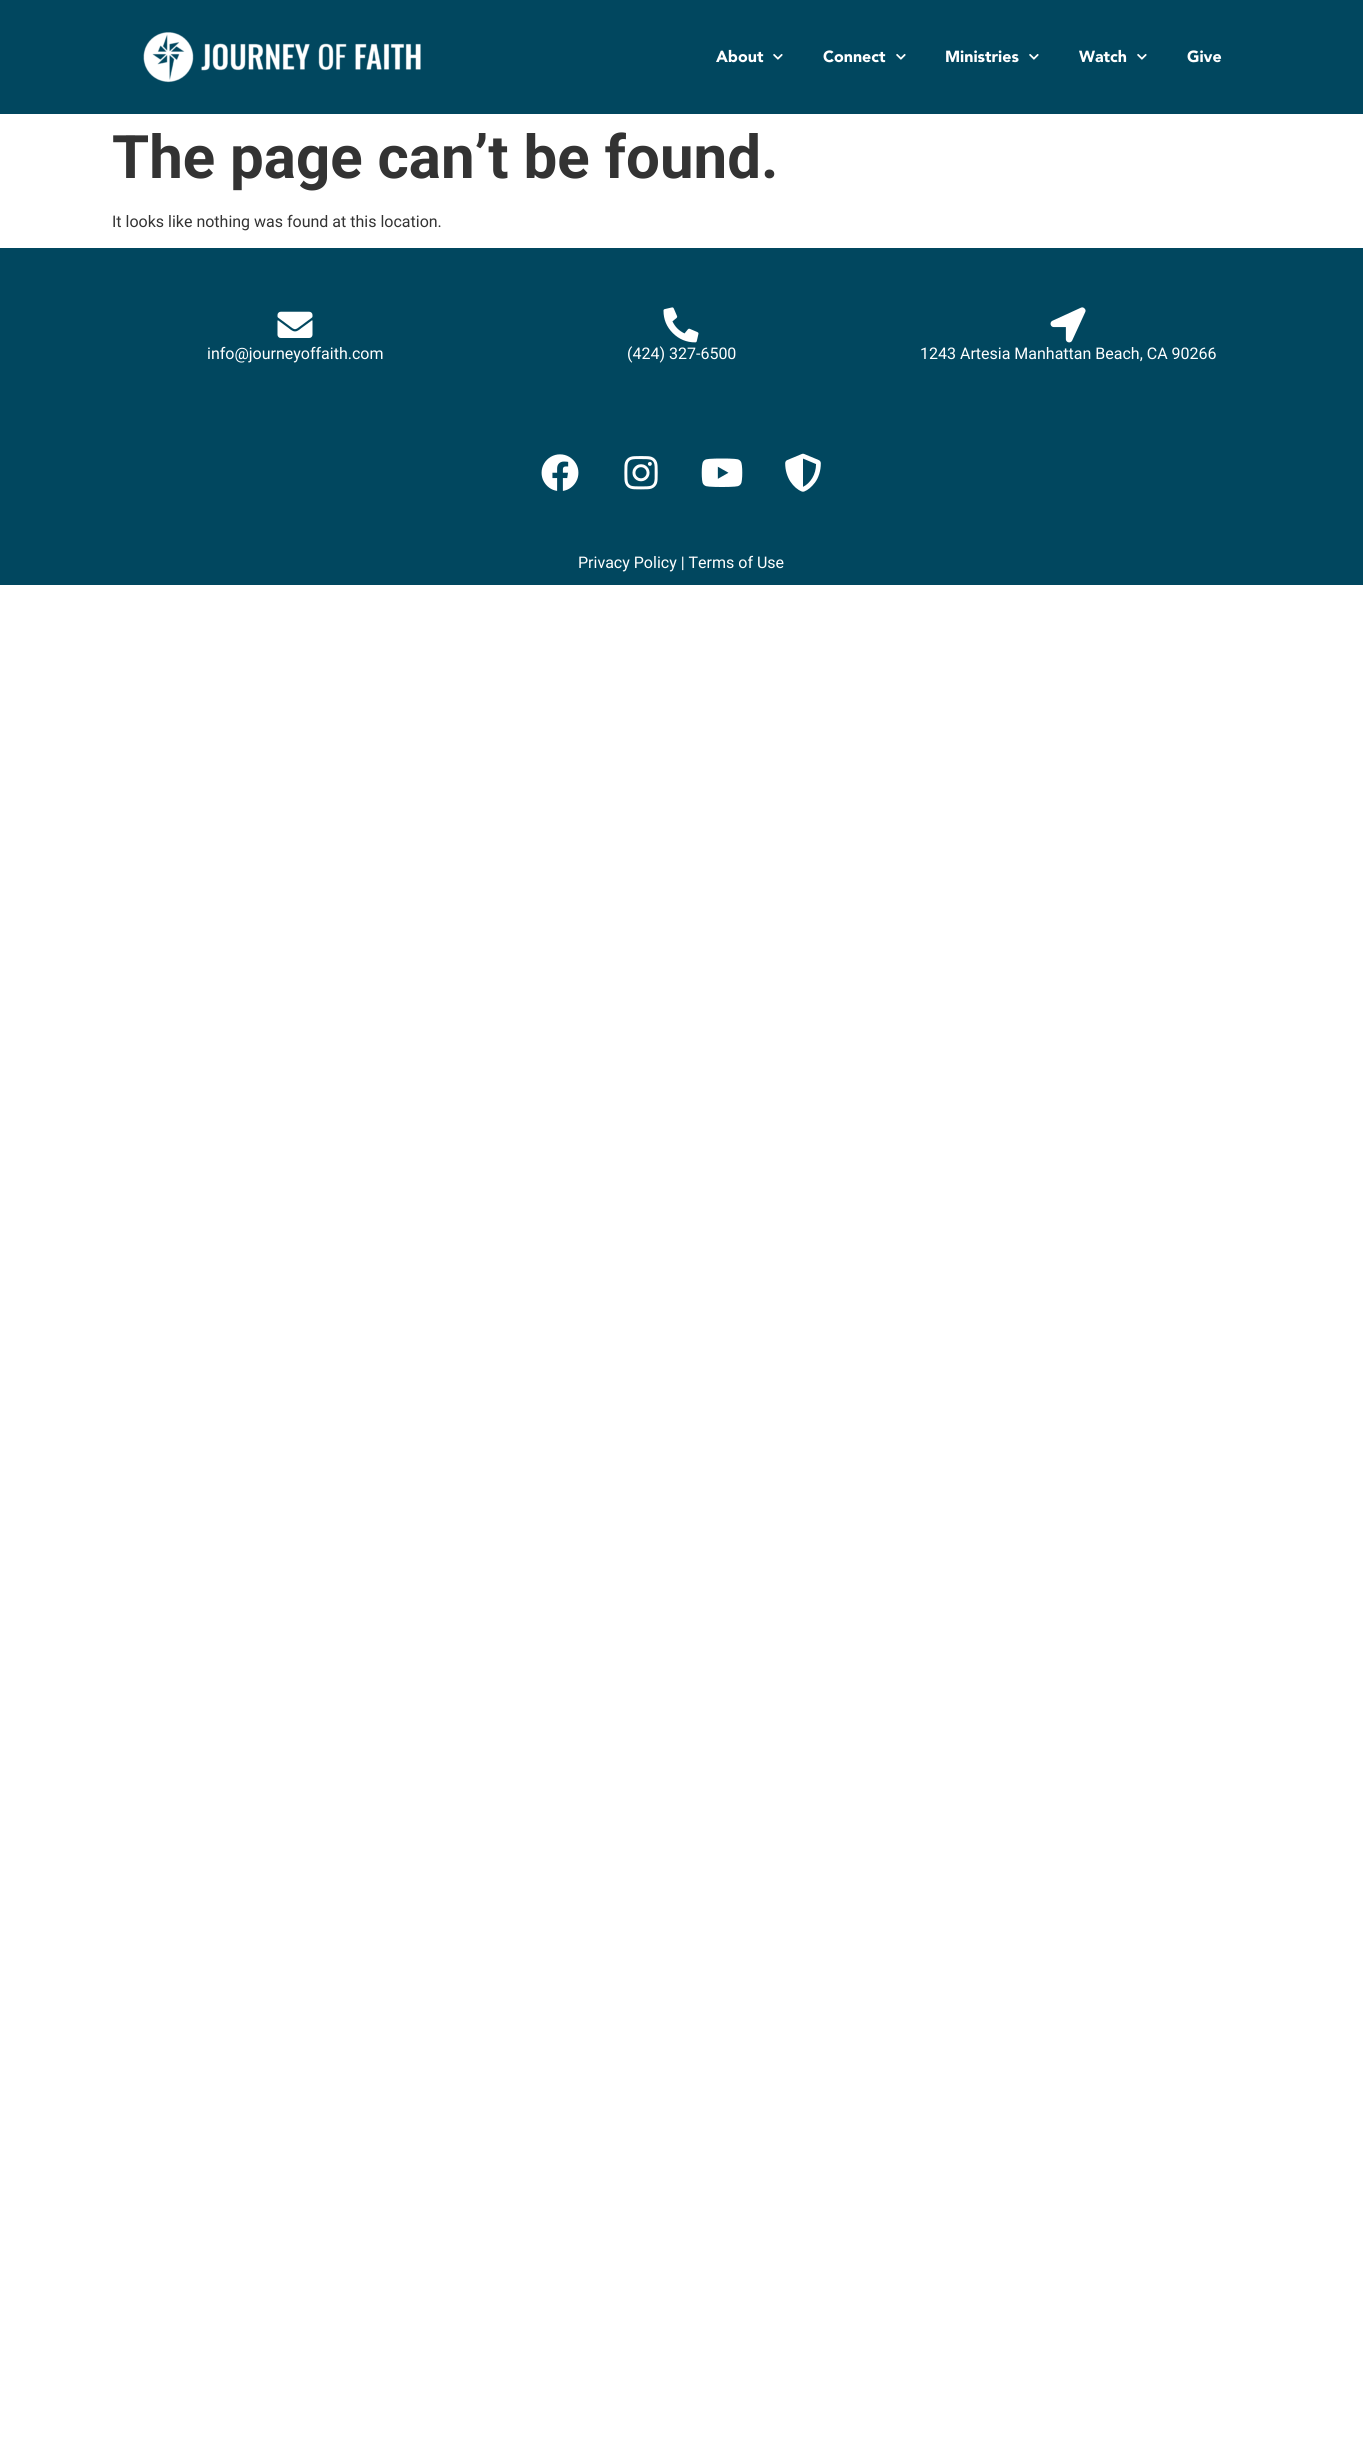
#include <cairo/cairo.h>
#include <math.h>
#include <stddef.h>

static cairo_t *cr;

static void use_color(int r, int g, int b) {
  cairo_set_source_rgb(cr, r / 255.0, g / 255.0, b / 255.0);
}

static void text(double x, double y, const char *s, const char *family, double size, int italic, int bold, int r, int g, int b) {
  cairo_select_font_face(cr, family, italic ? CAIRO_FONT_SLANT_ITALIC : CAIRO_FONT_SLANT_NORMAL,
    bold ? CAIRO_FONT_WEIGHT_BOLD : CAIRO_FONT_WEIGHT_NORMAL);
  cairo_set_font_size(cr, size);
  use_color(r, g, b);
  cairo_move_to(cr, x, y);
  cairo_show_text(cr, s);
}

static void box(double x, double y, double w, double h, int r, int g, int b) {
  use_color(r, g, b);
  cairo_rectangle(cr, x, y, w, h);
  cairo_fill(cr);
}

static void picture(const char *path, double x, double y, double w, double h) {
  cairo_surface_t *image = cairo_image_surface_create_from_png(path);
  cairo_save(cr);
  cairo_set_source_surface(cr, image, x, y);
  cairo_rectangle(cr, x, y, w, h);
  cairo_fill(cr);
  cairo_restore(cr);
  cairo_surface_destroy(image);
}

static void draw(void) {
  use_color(255, 255, 255);
  cairo_paint(cr);
  box(0, 0, 1363, 114, 1, 71, 95);
  picture("img_01.png", 143, 32, 278, 51);
  picture("img_02.png", 773, 54, 10, 6);
  picture("img_02.png", 896, 54, 10, 6);
  picture("img_02.png", 1029, 54, 10, 6);
  picture("img_02.png", 1137, 54, 10, 6);
  box(0, 248, 1363, 337, 1, 71, 95);
  picture("img_03.png", 277, 311, 36, 27);
  picture("img_04.png", 663, 307, 36, 36);
  picture("img_05.png", 1050, 307, 36, 36);
  picture("img_06.png", 541, 454, 38, 37);
  picture("img_07.png", 624, 456, 34, 34);
  picture("img_08.png", 701, 458, 42, 29);
  picture("img_09.png", 785, 453, 36, 39);
  text(716, 62, "About", "Avenir Black", 16, 0, 0, 255, 255, 255);
  text(823, 62, "Connect", "Avenir Black", 16, 0, 0, 255, 255, 255);
  text(945, 62, "Ministries", "Avenir Black", 16, 0, 0, 255, 255, 255);
  text(1079, 62, "Watch", "Avenir Black", 16, 0, 0, 255, 255, 255);
  text(1187, 62, "Give", "Avenir Black", 16, 0, 0, 255, 255, 255);
  text(112, 178, "The page can’t be found.", "Roboto", 60, 0, 1, 51, 51, 51);
  text(112, 227, "It looks like nothing was found at this location.", "Roboto", 16, 0, 0, 51, 51, 51);
  text(207, 359, "info@journeyoffaith.com", "Roboto", 16, 0, 0, 255, 255, 255);
  text(627, 359, "(424) 327-6500", "Roboto", 16, 0, 0, 255, 255, 255);
  text(920, 359, "1243 Artesia Manhattan Beach, CA 90266", "Roboto", 16, 0, 0, 255, 255, 255);
  text(578, 568, "Privacy Policy | Terms of Use", "Roboto", 16, 0, 0, 255, 255, 255);
}

int main(void) {
  cairo_surface_t *surface = cairo_image_surface_create(CAIRO_FORMAT_RGB24, 1363, 2461);
  cr = cairo_create(surface);
  cairo_font_options_t *options = cairo_font_options_create();
  cairo_font_options_set_hint_metrics(options, CAIRO_HINT_METRICS_OFF);
  cairo_font_options_set_hint_style(options, CAIRO_HINT_STYLE_NONE);
  cairo_set_font_options(cr, options);
  cairo_set_miter_limit(cr, 4);
  draw();
  cairo_surface_write_to_png(surface, "out.png");
  cairo_font_options_destroy(options);
  cairo_destroy(cr);
  cairo_surface_destroy(surface);
  return 0;
}
